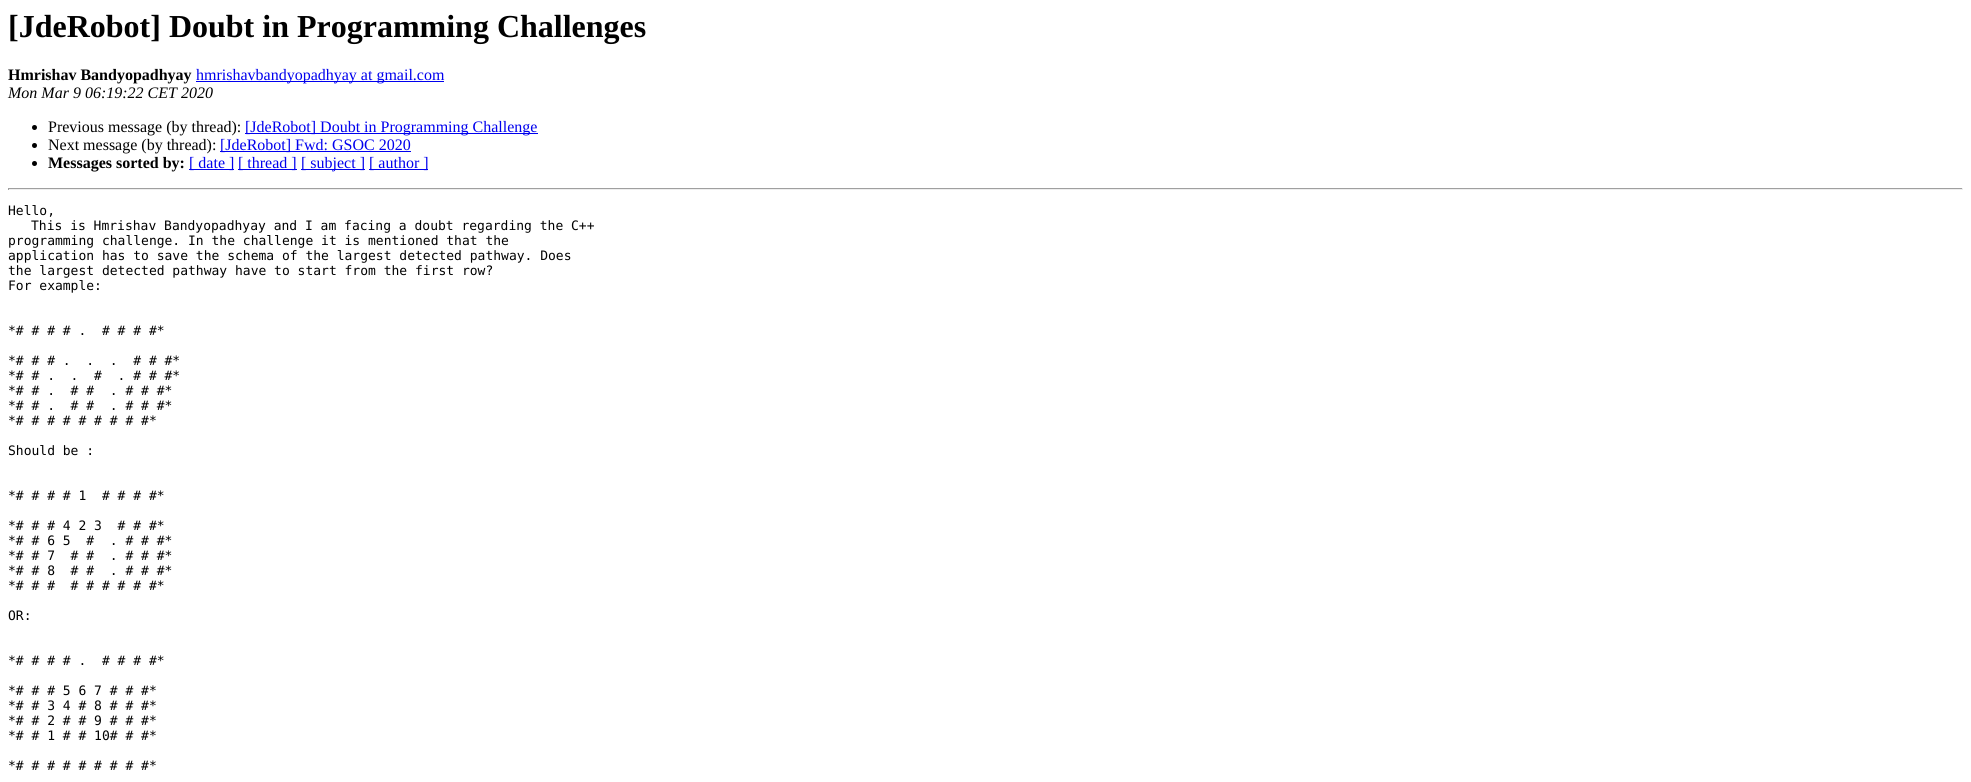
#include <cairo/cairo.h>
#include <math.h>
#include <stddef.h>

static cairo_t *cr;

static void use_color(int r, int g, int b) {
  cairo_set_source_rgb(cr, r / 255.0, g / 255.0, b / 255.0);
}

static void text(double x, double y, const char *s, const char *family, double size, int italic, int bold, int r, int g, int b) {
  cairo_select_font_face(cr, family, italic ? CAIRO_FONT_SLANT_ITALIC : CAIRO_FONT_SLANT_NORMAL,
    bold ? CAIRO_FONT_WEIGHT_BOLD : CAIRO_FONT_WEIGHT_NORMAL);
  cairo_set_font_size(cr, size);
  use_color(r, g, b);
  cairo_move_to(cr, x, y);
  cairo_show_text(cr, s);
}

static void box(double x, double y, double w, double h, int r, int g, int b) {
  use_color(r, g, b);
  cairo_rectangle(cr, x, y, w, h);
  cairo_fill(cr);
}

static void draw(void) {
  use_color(255, 255, 255);
  cairo_paint(cr);
  box(196, 81, 248, 1, 0, 0, 238);
  use_color(0, 0, 0);
  cairo_arc(cr, 34.5, 127.5, 2.5, 0, 2 * M_PI);
  cairo_fill(cr);
  box(245, 133, 293, 1, 0, 0, 238);
  use_color(0, 0, 0);
  cairo_arc(cr, 34.5, 145.5, 2.5, 0, 2 * M_PI);
  cairo_fill(cr);
  box(220, 151, 191, 1, 0, 0, 238);
  use_color(0, 0, 0);
  cairo_arc(cr, 34.5, 163.5, 2.5, 0, 2 * M_PI);
  cairo_fill(cr);
  box(189, 169, 45, 1, 0, 0, 238);
  box(238, 169, 59, 1, 0, 0, 238);
  box(301, 169, 64, 1, 0, 0, 238);
  box(369, 169, 59, 1, 0, 0, 238);
  box(8, 188, 1955, 1, 159, 159, 159);
  box(1962, 188, 1, 2, 238, 238, 238);
  box(8, 189, 1955, 1, 238, 238, 238);
  box(8, 188, 1, 2, 159, 159, 159);
  text(8, 37, "[JdeRobot] Doubt in Programming Challenges", "Liberation Serif", 32, 0, 1, 0, 0, 0);
  text(8, 80, "Hmrishav Bandyopadhyay", "Liberation Serif", 16, 0, 1, 0, 0, 0);
  text(196, 80, "hmrishavbandyopadhyay at gmail.com", "Liberation Serif", 16, 0, 0, 0, 0, 238);
  text(8, 98, "Mon Mar 9 06:19:22 CET 2020", "Liberation Serif", 16, 1, 0, 0, 0, 0);
  text(48, 132, "Previous message (by thread):", "Liberation Serif", 16, 0, 0, 0, 0, 0);
  text(245, 132, "[JdeRobot] Doubt in Programming Challenge", "Liberation Serif", 16, 0, 0, 0, 0, 238);
  text(48, 150, "Next message (by thread):", "Liberation Serif", 16, 0, 0, 0, 0, 0);
  text(220, 150, "[JdeRobot] Fwd: GSOC 2020", "Liberation Serif", 16, 0, 0, 0, 0, 238);
  text(48, 168, "Messages sorted by:", "Liberation Serif", 16, 0, 1, 0, 0, 0);
  text(189, 168, "[ date ]", "Liberation Serif", 16, 0, 0, 0, 0, 238);
  text(238, 168, "[ thread ]", "Liberation Serif", 16, 0, 0, 0, 0, 238);
  text(301, 168, "[ subject ]", "Liberation Serif", 16, 0, 0, 0, 0, 238);
  text(369, 168, "[ author ]", "Liberation Serif", 16, 0, 0, 0, 0, 238);
  text(8, 215, "Hello,", "DejaVu Sans Mono", 13, 0, 0, 0, 0, 0);
  text(31, 230, "This is Hmrishav Bandyopadhyay and I am facing a doubt regarding the C++", "DejaVu Sans Mono", 13, 0, 0, 0, 0, 0);
  text(8, 245, "programming challenge. In the challenge it is mentioned that the", "DejaVu Sans Mono", 13, 0, 0, 0, 0, 0);
  text(8, 260, "application has to save the schema of the largest detected pathway. Does", "DejaVu Sans Mono", 13, 0, 0, 0, 0, 0);
  text(8, 275, "the largest detected pathway have to start from the first row?", "DejaVu Sans Mono", 13, 0, 0, 0, 0, 0);
  text(8, 290, "For example:", "DejaVu Sans Mono", 13, 0, 0, 0, 0, 0);
  text(8, 335, "*# # # # .  # # # #*", "DejaVu Sans Mono", 13, 0, 0, 0, 0, 0);
  text(8, 365, "*# # # .  .  .  # # #*", "DejaVu Sans Mono", 13, 0, 0, 0, 0, 0);
  text(8, 380, "*# # .  .  #  . # # #*", "DejaVu Sans Mono", 13, 0, 0, 0, 0, 0);
  text(8, 395, "*# # .  # #  . # # #*", "DejaVu Sans Mono", 13, 0, 0, 0, 0, 0);
  text(8, 410, "*# # .  # #  . # # #*", "DejaVu Sans Mono", 13, 0, 0, 0, 0, 0);
  text(8, 425, "*# # # # # # # # #*", "DejaVu Sans Mono", 13, 0, 0, 0, 0, 0);
  text(8, 455, "Should be :", "DejaVu Sans Mono", 13, 0, 0, 0, 0, 0);
  text(8, 500, "*# # # # 1  # # # #*", "DejaVu Sans Mono", 13, 0, 0, 0, 0, 0);
  text(8, 530, "*# # # 4 2 3  # # #*", "DejaVu Sans Mono", 13, 0, 0, 0, 0, 0);
  text(8, 545, "*# # 6 5  #  . # # #*", "DejaVu Sans Mono", 13, 0, 0, 0, 0, 0);
  text(8, 560, "*# # 7  # #  . # # #*", "DejaVu Sans Mono", 13, 0, 0, 0, 0, 0);
  text(8, 575, "*# # 8  # #  . # # #*", "DejaVu Sans Mono", 13, 0, 0, 0, 0, 0);
  text(8, 590, "*# # #  # # # # # #*", "DejaVu Sans Mono", 13, 0, 0, 0, 0, 0);
  text(8, 620, "OR:", "DejaVu Sans Mono", 13, 0, 0, 0, 0, 0);
  text(8, 665, "*# # # # .  # # # #*", "DejaVu Sans Mono", 13, 0, 0, 0, 0, 0);
  text(8, 695, "*# # # 5 6 7 # # #*", "DejaVu Sans Mono", 13, 0, 0, 0, 0, 0);
  text(8, 710, "*# # 3 4 # 8 # # #*", "DejaVu Sans Mono", 13, 0, 0, 0, 0, 0);
  text(8, 725, "*# # 2 # # 9 # # #*", "DejaVu Sans Mono", 13, 0, 0, 0, 0, 0);
  text(8, 740, "*# # 1 # # 10# # #*", "DejaVu Sans Mono", 13, 0, 0, 0, 0, 0);
  text(8, 770, "*# # # # # # # # #*", "DejaVu Sans Mono", 13, 0, 0, 0, 0, 0);
}

int main(void) {
  cairo_surface_t *surface = cairo_image_surface_create(CAIRO_FORMAT_RGB24, 1971, 782);
  cr = cairo_create(surface);
  cairo_font_options_t *options = cairo_font_options_create();
  cairo_font_options_set_hint_metrics(options, CAIRO_HINT_METRICS_OFF);
  cairo_font_options_set_hint_style(options, CAIRO_HINT_STYLE_NONE);
  cairo_set_font_options(cr, options);
  cairo_set_miter_limit(cr, 4);
  draw();
  cairo_surface_write_to_png(surface, "out.png");
  cairo_font_options_destroy(options);
  cairo_destroy(cr);
  cairo_surface_destroy(surface);
  return 0;
}
